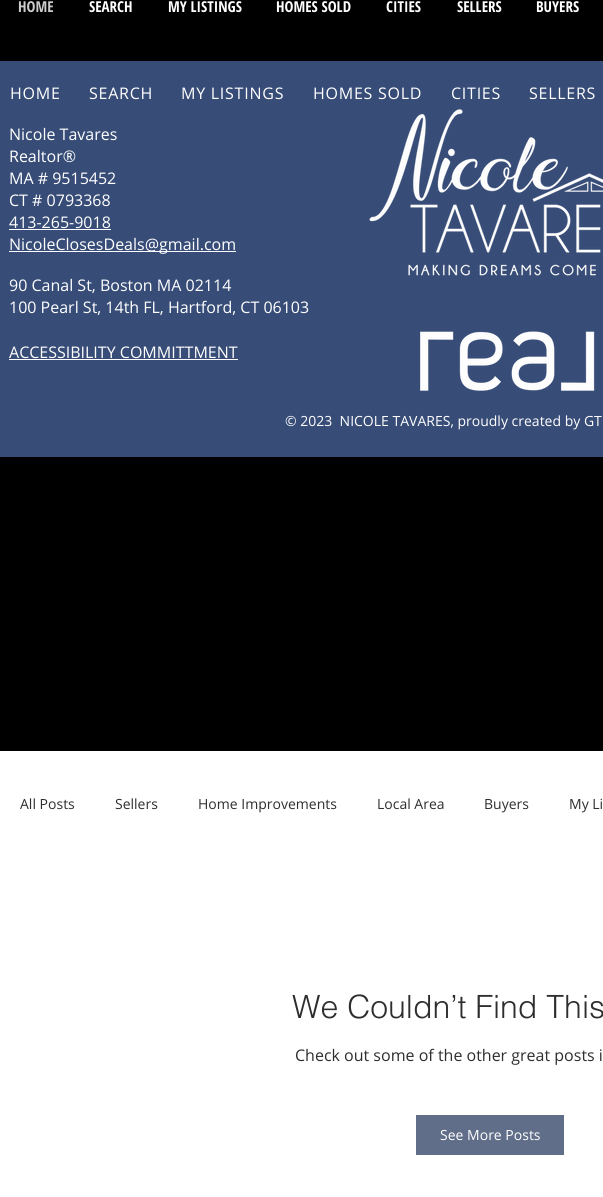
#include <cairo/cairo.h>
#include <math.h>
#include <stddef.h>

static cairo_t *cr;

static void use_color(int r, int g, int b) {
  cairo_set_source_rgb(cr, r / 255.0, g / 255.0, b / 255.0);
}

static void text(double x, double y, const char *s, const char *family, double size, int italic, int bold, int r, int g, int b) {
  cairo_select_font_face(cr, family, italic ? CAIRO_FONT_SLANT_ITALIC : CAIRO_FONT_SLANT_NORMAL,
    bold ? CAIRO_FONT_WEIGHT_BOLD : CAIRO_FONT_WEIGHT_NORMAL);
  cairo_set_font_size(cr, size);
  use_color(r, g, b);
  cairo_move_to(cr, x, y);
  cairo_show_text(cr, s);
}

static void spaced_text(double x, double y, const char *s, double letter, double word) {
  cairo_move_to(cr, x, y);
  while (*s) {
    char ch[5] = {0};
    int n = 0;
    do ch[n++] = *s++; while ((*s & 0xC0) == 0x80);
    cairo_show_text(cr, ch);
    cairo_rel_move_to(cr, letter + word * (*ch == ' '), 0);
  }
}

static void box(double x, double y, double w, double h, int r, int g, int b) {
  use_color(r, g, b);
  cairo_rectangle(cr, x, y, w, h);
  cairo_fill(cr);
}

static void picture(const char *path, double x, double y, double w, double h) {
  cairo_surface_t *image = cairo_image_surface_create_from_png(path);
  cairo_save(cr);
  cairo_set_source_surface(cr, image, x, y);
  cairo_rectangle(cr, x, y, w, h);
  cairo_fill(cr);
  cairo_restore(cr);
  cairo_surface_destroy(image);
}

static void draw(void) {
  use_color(255, 255, 255);
  cairo_paint(cr);
  box(0, 0, 603, 751, 0, 0, 0);
  box(0, 61, 603, 396, 55, 76, 119);
  box(9, 229, 102, 1, 255, 255, 255);
  box(9, 251, 227, 1, 255, 255, 255);
  picture("img_01.png", 369, 109, 234, 167);
  box(9, 359, 229, 1, 255, 255, 255);
  picture("img_02.png", 420, 331, 175, 60);
  box(416, 1115, 148, 40, 97, 110, 137);
  text(18, 12, "HOME", "Open Sans Condensed", 15, 0, 1, 204, 204, 204);
  text(89, 12, "SEARCH", "Open Sans Condensed", 15, 0, 1, 255, 255, 255);
  text(168, 12, "MY LISTINGS", "Open Sans Condensed", 15, 0, 1, 255, 255, 255);
  text(276, 12, "HOMES SOLD", "Open Sans Condensed", 15, 0, 1, 255, 255, 255);
  text(386, 12, "CITIES", "Open Sans Condensed", 15, 0, 1, 255, 255, 255);
  text(457, 12, "SELLERS", "Open Sans Condensed", 15, 0, 1, 255, 255, 255);
  text(536, 12, "BUYERS", "Open Sans Condensed", 15, 0, 1, 255, 255, 255);
  cairo_select_font_face(cr, "Open Sans", CAIRO_FONT_SLANT_NORMAL, CAIRO_FONT_WEIGHT_NORMAL);
  cairo_set_font_size(cr, 16);
  spaced_text(10, 99, "HOME", 0.75, 0);
  spaced_text(89, 99, "SEARCH", 0.75, 0);
  spaced_text(181, 99, "MY LISTINGS", 0.75, 0);
  spaced_text(313, 99, "HOMES SOLD", 0.75, 0);
  spaced_text(451, 99, "CITIES", 0.75, 0);
  spaced_text(529, 99, "SELLERS", 0.75, 0);
  text(9, 140, "Nicole Tavares", "Open Sans", 16, 0, 0, 255, 255, 255);
  text(9, 162, "Realtor®", "Open Sans", 16, 0, 0, 255, 255, 255);
  text(9, 184, "MA # 9515452", "Open Sans", 16, 0, 0, 255, 255, 255);
  text(9, 206, "CT # 0793368", "Open Sans", 16, 0, 0, 255, 255, 255);
  text(9, 228, "413-265-9018", "Open Sans", 16, 0, 0, 255, 255, 255);
  text(9, 250, "NicoleClosesDeals@gmail.com", "Open Sans", 16, 0, 0, 255, 255, 255);
  text(9, 291, "90 Canal St, Boston MA 02114", "Open Sans", 16, 0, 0, 255, 255, 255);
  text(9, 313, "100 Pearl St, 14th FL, Hartford, CT 06103", "Open Sans", 16, 0, 0, 255, 255, 255);
  text(9, 358, "ACCESSIBILITY COMMITTMENT", "Open Sans", 16, 0, 0, 255, 255, 255);
  text(285, 426, "© 2023  NICOLE TAVARES, proudly created by GT", "Open Sans", 14, 0, 0, 255, 255, 255);
  text(20, 809, "All Posts", "Open Sans", 14, 0, 0, 47, 46, 46);
  text(115, 809, "Sellers", "Open Sans", 14, 0, 0, 47, 46, 46);
  text(198, 809, "Home Improvements", "Open Sans", 14, 0, 0, 47, 46, 46);
  text(377, 809, "Local Area", "Open Sans", 14, 0, 0, 47, 46, 46);
  text(484, 809, "Buyers", "Open Sans", 14, 0, 0, 47, 46, 46);
  text(569, 809, "My Li", "Open Sans", 14, 0, 0, 47, 46, 46);
  text(292, 1018, "We Couldn’t Find This", "helvetica Light", 32, 0, 0, 47, 46, 46);
  text(295, 1061, "Check out some of the other great posts i", "Open Sans", 16, 0, 0, 47, 46, 46);
  text(440, 1140, "See More Posts", "Open Sans", 14, 0, 0, 255, 255, 255);
}

int main(void) {
  cairo_surface_t *surface = cairo_image_surface_create(CAIRO_FORMAT_RGB24, 603, 1197);
  cr = cairo_create(surface);
  cairo_font_options_t *options = cairo_font_options_create();
  cairo_font_options_set_hint_metrics(options, CAIRO_HINT_METRICS_OFF);
  cairo_font_options_set_hint_style(options, CAIRO_HINT_STYLE_NONE);
  cairo_set_font_options(cr, options);
  cairo_set_miter_limit(cr, 4);
  draw();
  cairo_surface_write_to_png(surface, "out.png");
  cairo_font_options_destroy(options);
  cairo_destroy(cr);
  cairo_surface_destroy(surface);
  return 0;
}
